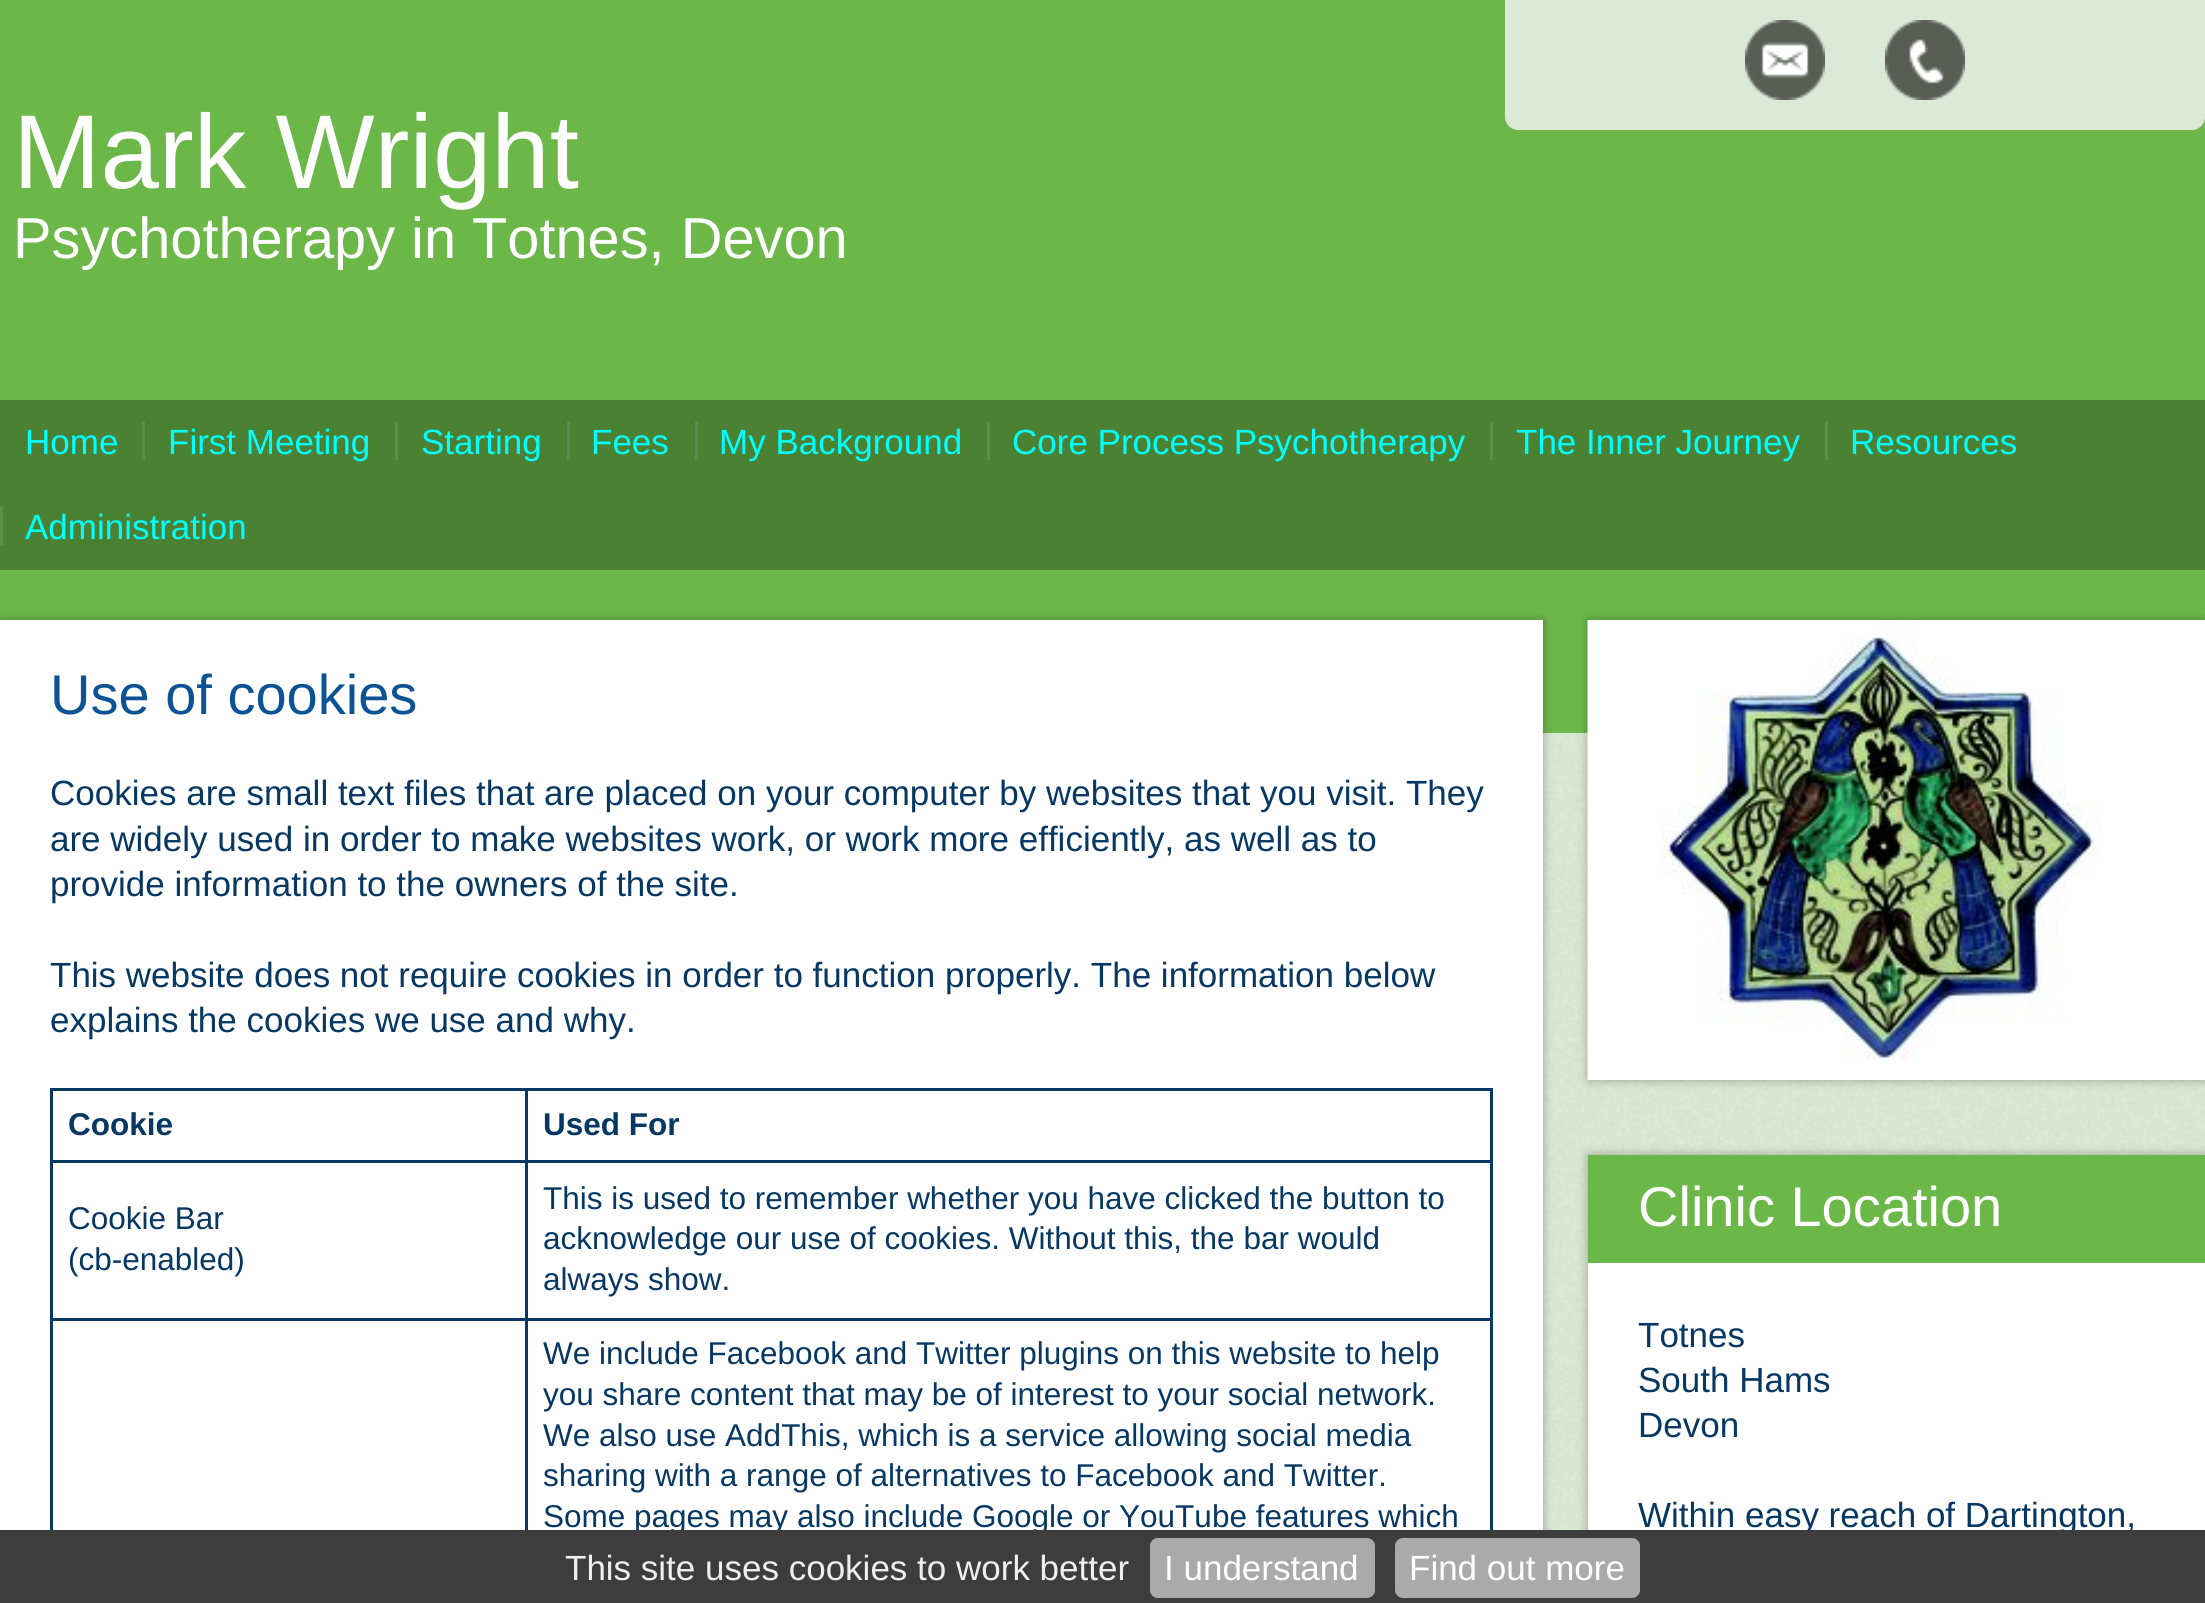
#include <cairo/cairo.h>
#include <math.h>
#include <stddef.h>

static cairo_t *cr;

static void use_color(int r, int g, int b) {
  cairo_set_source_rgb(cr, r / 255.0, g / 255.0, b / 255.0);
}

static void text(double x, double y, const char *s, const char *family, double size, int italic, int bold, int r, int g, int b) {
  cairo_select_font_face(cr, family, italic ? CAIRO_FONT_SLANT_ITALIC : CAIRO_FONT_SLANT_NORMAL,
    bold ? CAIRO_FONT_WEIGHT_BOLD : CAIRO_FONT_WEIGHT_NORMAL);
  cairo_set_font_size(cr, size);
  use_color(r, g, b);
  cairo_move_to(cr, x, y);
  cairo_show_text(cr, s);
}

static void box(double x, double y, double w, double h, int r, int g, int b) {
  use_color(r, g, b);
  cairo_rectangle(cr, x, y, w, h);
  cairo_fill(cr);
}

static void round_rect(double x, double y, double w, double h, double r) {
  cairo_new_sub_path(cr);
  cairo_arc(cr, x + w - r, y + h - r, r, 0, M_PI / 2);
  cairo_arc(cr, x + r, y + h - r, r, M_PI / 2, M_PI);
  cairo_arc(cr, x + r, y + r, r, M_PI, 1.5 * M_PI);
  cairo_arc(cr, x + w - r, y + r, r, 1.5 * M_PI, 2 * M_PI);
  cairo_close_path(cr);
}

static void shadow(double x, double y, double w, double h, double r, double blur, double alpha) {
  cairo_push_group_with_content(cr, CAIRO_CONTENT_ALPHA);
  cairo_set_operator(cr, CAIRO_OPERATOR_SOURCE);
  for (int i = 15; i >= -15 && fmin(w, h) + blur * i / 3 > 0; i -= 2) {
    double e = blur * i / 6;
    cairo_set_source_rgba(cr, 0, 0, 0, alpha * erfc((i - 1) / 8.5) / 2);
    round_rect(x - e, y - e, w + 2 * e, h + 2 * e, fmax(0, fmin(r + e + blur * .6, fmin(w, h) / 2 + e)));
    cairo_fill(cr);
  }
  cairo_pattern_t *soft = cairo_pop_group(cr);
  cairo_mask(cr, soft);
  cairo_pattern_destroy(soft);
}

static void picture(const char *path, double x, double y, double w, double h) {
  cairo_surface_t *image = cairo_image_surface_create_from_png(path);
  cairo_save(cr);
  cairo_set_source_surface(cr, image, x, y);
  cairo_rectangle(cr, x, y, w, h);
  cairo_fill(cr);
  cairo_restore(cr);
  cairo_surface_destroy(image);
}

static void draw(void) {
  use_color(220, 233, 214);
  cairo_paint(cr);
  box(0, 0, 2205, 733, 107, 184, 73);
  use_color(220, 233, 214);
  cairo_new_path(cr);
  cairo_move_to(cr, 1505, 0);
  cairo_line_to(cr, 2205, 0);
  cairo_line_to(cr, 2205, 117);
  cairo_curve_to(cr, 2205, 124, 2199, 130, 2192, 130);
  cairo_line_to(cr, 1518, 130);
  cairo_curve_to(cr, 1511, 130, 1505, 124, 1505, 117);
  cairo_close_path(cr);
  cairo_fill(cr);
  picture("img_01.png", 1745, 20, 80, 80);
  picture("img_02.png", 1885, 20, 80, 80);
  box(0, 400, 2205, 170, 75, 129, 51);
  box(142, 422, 3, 38, 93, 142, 71);
  box(395, 422, 3, 38, 93, 142, 71);
  box(567, 422, 3, 38, 93, 142, 71);
  box(695, 422, 3, 38, 93, 142, 71);
  box(987, 422, 3, 38, 93, 142, 71);
  box(1490, 422, 3, 38, 93, 142, 71);
  box(1825, 422, 3, 38, 93, 142, 71);
  box(0, 507, 3, 38, 93, 142, 71);
  picture("img_04.png", 1543, 733, 662, 797);
  use_color(0, 0, 0);
  shadow(0, 620, 1543, 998, 0, 5, 0.3);
  box(0, 620, 1543, 910, 255, 255, 255);
  box(525, 1088, 968, 3, 7, 55, 99);
  box(525, 1160, 968, 3, 7, 55, 99);
  box(525, 1318, 968, 3, 7, 55, 99);
  box(525, 1318, 3, 212, 7, 55, 99);
  box(50, 1318, 478, 3, 7, 55, 99);
  box(525, 1160, 3, 160, 7, 55, 99);
  box(50, 1160, 478, 3, 7, 55, 99);
  box(525, 1088, 3, 75, 7, 55, 99);
  box(50, 1088, 478, 3, 7, 55, 99);
  box(50, 1318, 3, 212, 7, 55, 99);
  box(50, 1160, 3, 160, 7, 55, 99);
  box(50, 1088, 3, 75, 7, 55, 99);
  box(1490, 1318, 3, 212, 7, 55, 99);
  box(1490, 1160, 3, 160, 7, 55, 99);
  box(1490, 1088, 3, 75, 7, 55, 99);
  use_color(0, 0, 0);
  shadow(1588, 620, 617, 460, 0, 5, 0.3);
  box(2102, 620, 103, 460, 255, 255, 255);
  picture("img_03.png", 1587, 620, 515, 460);
  use_color(0, 0, 0);
  shadow(1588, 1155, 617, 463, 0, 5, 0.3);
  box(1588, 1263, 617, 267, 255, 255, 255);
  box(1588, 1155, 617, 108, 107, 184, 73);
  text(13, 188, "Mark Wright", "Liberation Sans", 105, 0, 0, 255, 255, 255);
  text(13, 258, "Psychotherapy in Totnes, Devon", "Liberation Sans", 57.75, 0, 0, 255, 255, 255);
  text(25, 454, "Home", "Liberation Sans", 35, 0, 0, 0, 255, 255);
  text(168, 454, "First Meeting", "Liberation Sans", 35, 0, 0, 0, 255, 255);
  text(421, 454, "Starting", "Liberation Sans", 35, 0, 0, 0, 255, 255);
  text(591, 454, "Fees", "Liberation Sans", 35, 0, 0, 0, 255, 255);
  text(719, 454, "My Background", "Liberation Sans", 35, 0, 0, 0, 255, 255);
  text(1012, 454, "Core Process Psychotherapy", "Liberation Sans", 35, 0, 0, 0, 255, 255);
  text(1516, 454, "The Inner Journey", "Liberation Sans", 35, 0, 0, 0, 255, 255);
  text(1850, 454, "Resources", "Liberation Sans", 35, 0, 0, 0, 255, 255);
  text(25, 539, "Administration", "Liberation Sans", 35, 0, 0, 0, 255, 255);
  text(50, 714, "Use of cookies", "Liberation Sans", 56, 0, 0, 11, 83, 148);
  text(50, 805, "Cookies are small text files that are placed on your computer by websites that you visit. They", "Liberation Sans", 35, 0, 0, 7, 55, 99);
  text(50, 851, "are widely used in order to make websites work, or work more efficiently, as well as to", "Liberation Sans", 35, 0, 0, 7, 55, 99);
  text(50, 896, "provide information to the owners of the site.", "Liberation Sans", 35, 0, 0, 7, 55, 99);
  text(50, 987, "This website does not require cookies in order to function properly. The information below", "Liberation Sans", 35, 0, 0, 7, 55, 99);
  text(50, 1032, "explains the cookies we use and why.", "Liberation Sans", 35, 0, 0, 7, 55, 99);
  text(68, 1135, "Cookie", "Liberation Sans", 31.5, 0, 1, 7, 55, 99);
  text(543, 1135, "Used For", "Liberation Sans", 31.5, 0, 1, 7, 55, 99);
  text(68, 1229, "Cookie Bar", "Liberation Sans", 31.5, 0, 0, 7, 55, 99);
  text(68, 1270, "(cb-enabled)", "Liberation Sans", 31.5, 0, 0, 7, 55, 99);
  text(543, 1209, "This is used to remember whether you have clicked the button to", "Liberation Sans", 31.5, 0, 0, 7, 55, 99);
  text(543, 1249, "acknowledge our use of cookies. Without this, the bar would", "Liberation Sans", 31.5, 0, 0, 7, 55, 99);
  text(543, 1290, "always show.", "Liberation Sans", 31.5, 0, 0, 7, 55, 99);
  text(543, 1364, "We include Facebook and Twitter plugins on this website to help", "Liberation Sans", 31.5, 0, 0, 7, 55, 99);
  text(543, 1405, "you share content that may be of interest to your social network.", "Liberation Sans", 31.5, 0, 0, 7, 55, 99);
  text(543, 1446, "We also use AddThis, which is a service allowing social media", "Liberation Sans", 31.5, 0, 0, 7, 55, 99);
  text(543, 1486, "sharing with a range of alternatives to Facebook and Twitter.", "Liberation Sans", 31.5, 0, 0, 7, 55, 99);
  text(543, 1527, "Some pages may also include Google or YouTube features which", "Liberation Sans", 31.5, 0, 0, 7, 55, 99);
  text(1638, 1226, "Clinic Location", "Liberation Sans", 56, 0, 0, 255, 255, 255);
  text(1638, 1347, "Totnes", "Liberation Sans", 35, 0, 0, 7, 55, 99);
  text(1638, 1392, "South Hams", "Liberation Sans", 35, 0, 0, 7, 55, 99);
  text(1638, 1437, "Devon", "Liberation Sans", 35, 0, 0, 7, 55, 99);
  text(1638, 1527, "Within easy reach of Dartington,", "Liberation Sans", 35, 0, 0, 7, 55, 99);
  box(0, 1530, 2205, 73, 61, 61, 61);
  text(565, 1580, "This site uses cookies to work better", "Liberation Sans", 35, 0, 0, 238, 238, 238);
  use_color(170, 170, 170);
  round_rect(1150, 1538, 225, 60, 8);
  cairo_fill(cr);
  text(1164, 1580, "I understand", "Liberation Sans", 35, 0, 0, 255, 255, 255);
  use_color(170, 170, 170);
  round_rect(1395, 1538, 245, 60, 8);
  cairo_fill(cr);
  text(1409, 1580, "Find out more", "Liberation Sans", 35, 0, 0, 255, 255, 255);
}

int main(void) {
  cairo_surface_t *surface = cairo_image_surface_create(CAIRO_FORMAT_RGB24, 2205, 1603);
  cr = cairo_create(surface);
  cairo_font_options_t *options = cairo_font_options_create();
  cairo_font_options_set_hint_metrics(options, CAIRO_HINT_METRICS_OFF);
  cairo_font_options_set_hint_style(options, CAIRO_HINT_STYLE_NONE);
  cairo_set_font_options(cr, options);
  cairo_set_miter_limit(cr, 4);
  draw();
  cairo_surface_write_to_png(surface, "out.png");
  cairo_font_options_destroy(options);
  cairo_destroy(cr);
  cairo_surface_destroy(surface);
  return 0;
}
